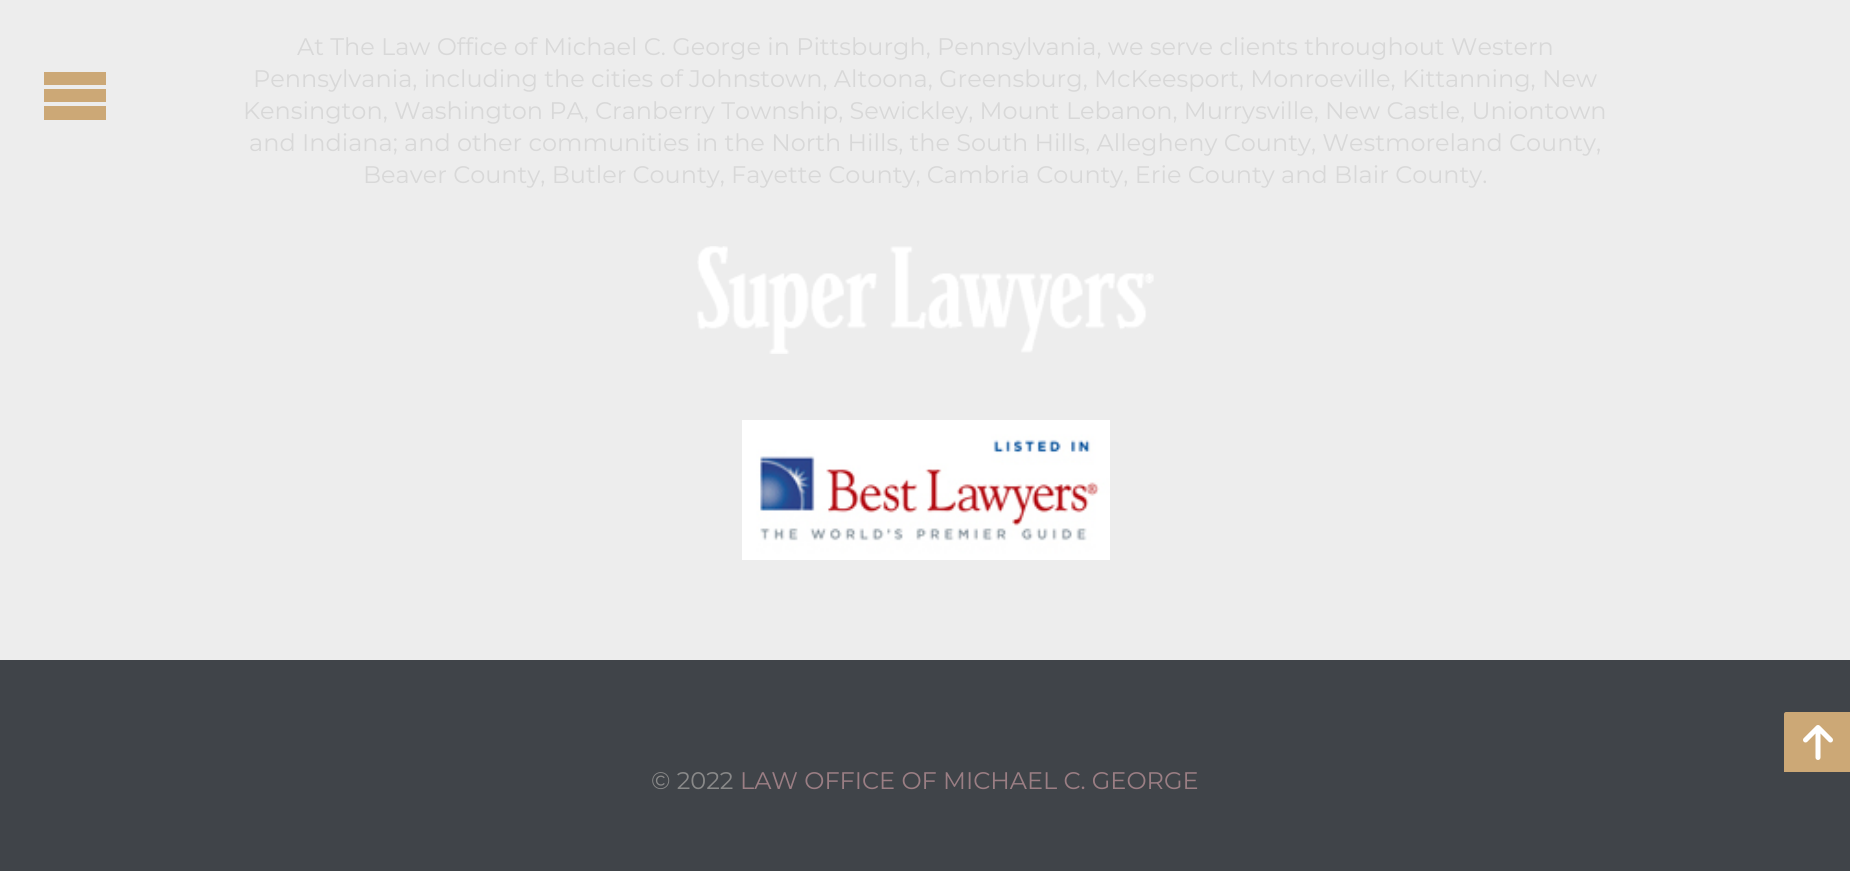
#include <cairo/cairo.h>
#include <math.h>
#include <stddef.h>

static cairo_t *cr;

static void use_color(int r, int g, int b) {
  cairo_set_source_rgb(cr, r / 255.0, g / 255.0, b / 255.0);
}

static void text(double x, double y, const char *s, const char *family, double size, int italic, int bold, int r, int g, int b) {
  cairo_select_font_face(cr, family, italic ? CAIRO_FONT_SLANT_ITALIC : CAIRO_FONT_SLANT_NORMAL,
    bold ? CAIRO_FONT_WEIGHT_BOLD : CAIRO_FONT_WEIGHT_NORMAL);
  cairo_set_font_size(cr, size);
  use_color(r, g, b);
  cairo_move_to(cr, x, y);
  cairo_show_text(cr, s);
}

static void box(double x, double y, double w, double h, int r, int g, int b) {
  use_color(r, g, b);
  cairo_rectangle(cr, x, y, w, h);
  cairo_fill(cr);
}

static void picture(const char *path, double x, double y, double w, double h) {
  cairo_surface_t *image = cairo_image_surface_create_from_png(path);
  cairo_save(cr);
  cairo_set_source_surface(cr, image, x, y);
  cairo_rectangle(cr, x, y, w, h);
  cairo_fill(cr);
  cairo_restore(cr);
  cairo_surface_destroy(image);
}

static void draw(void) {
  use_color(237, 237, 237);
  cairo_paint(cr);
  use_color(204, 168, 118);
  cairo_new_path(cr);
  cairo_move_to(cr, 44, 72);
  cairo_line_to(cr, 106, 72);
  cairo_line_to(cr, 106, 85);
  cairo_line_to(cr, 44, 85);
  cairo_close_path(cr);
  cairo_move_to(cr, 44, 89);
  cairo_line_to(cr, 106, 89);
  cairo_line_to(cr, 106, 102);
  cairo_line_to(cr, 44, 102);
  cairo_close_path(cr);
  cairo_move_to(cr, 44, 106);
  cairo_line_to(cr, 106, 106);
  cairo_line_to(cr, 106, 120);
  cairo_line_to(cr, 44, 120);
  cairo_close_path(cr);
  cairo_fill(cr);
  picture("img_01.png", 697, 246, 457, 108);
  picture("img_02.png", 742, 420, 368, 140);
  box(0, 660, 1850, 211, 64, 68, 73);
  use_color(204, 168, 118);
  cairo_new_path(cr);
  cairo_move_to(cr, 1786, 712);
  cairo_line_to(cr, 1850, 712);
  cairo_line_to(cr, 1850, 772);
  cairo_line_to(cr, 1784, 772);
  cairo_line_to(cr, 1784, 714);
  cairo_curve_to(cr, 1784, 713, 1785, 712, 1786, 712);
  cairo_close_path(cr);
  cairo_fill(cr);
  picture("img_03.png", 1803, 725, 30, 35);
  text(297, 55, "At The Law Office of Michael C. George in Pittsburgh, Pennsylvania, we serve clients throughout Western", "Montserrat", 24, 0, 0, 216, 216, 216);
  text(253, 87, "Pennsylvania, including the cities of Johnstown, Altoona, Greensburg, McKeesport, Monroeville, Kittanning, New", "Montserrat", 24, 0, 0, 216, 216, 216);
  text(243, 119, "Kensington, Washington PA, Cranberry Township, Sewickley, Mount Lebanon, Murrysville, New Castle, Uniontown", "Montserrat", 24, 0, 0, 216, 216, 216);
  text(249, 151, "and Indiana; and other communities in the North Hills, the South Hills, Allegheny County, Westmoreland County,", "Montserrat", 24, 0, 0, 216, 216, 216);
  text(363, 183, "Beaver County, Butler County, Fayette County, Cambria County, Erie County and Blair County.", "Montserrat", 24, 0, 0, 216, 216, 216);
  text(651, 789, "© 2022", "Montserrat", 24, 0, 0, 137, 137, 137);
  text(740, 789, "LAW OFFICE OF MICHAEL C. GEORGE", "Montserrat", 24, 0, 0, 155, 126, 132);
}

int main(void) {
  cairo_surface_t *surface = cairo_image_surface_create(CAIRO_FORMAT_RGB24, 1850, 871);
  cr = cairo_create(surface);
  cairo_font_options_t *options = cairo_font_options_create();
  cairo_font_options_set_hint_metrics(options, CAIRO_HINT_METRICS_OFF);
  cairo_font_options_set_hint_style(options, CAIRO_HINT_STYLE_NONE);
  cairo_set_font_options(cr, options);
  cairo_set_miter_limit(cr, 4);
  draw();
  cairo_surface_write_to_png(surface, "out.png");
  cairo_font_options_destroy(options);
  cairo_destroy(cr);
  cairo_surface_destroy(surface);
  return 0;
}
